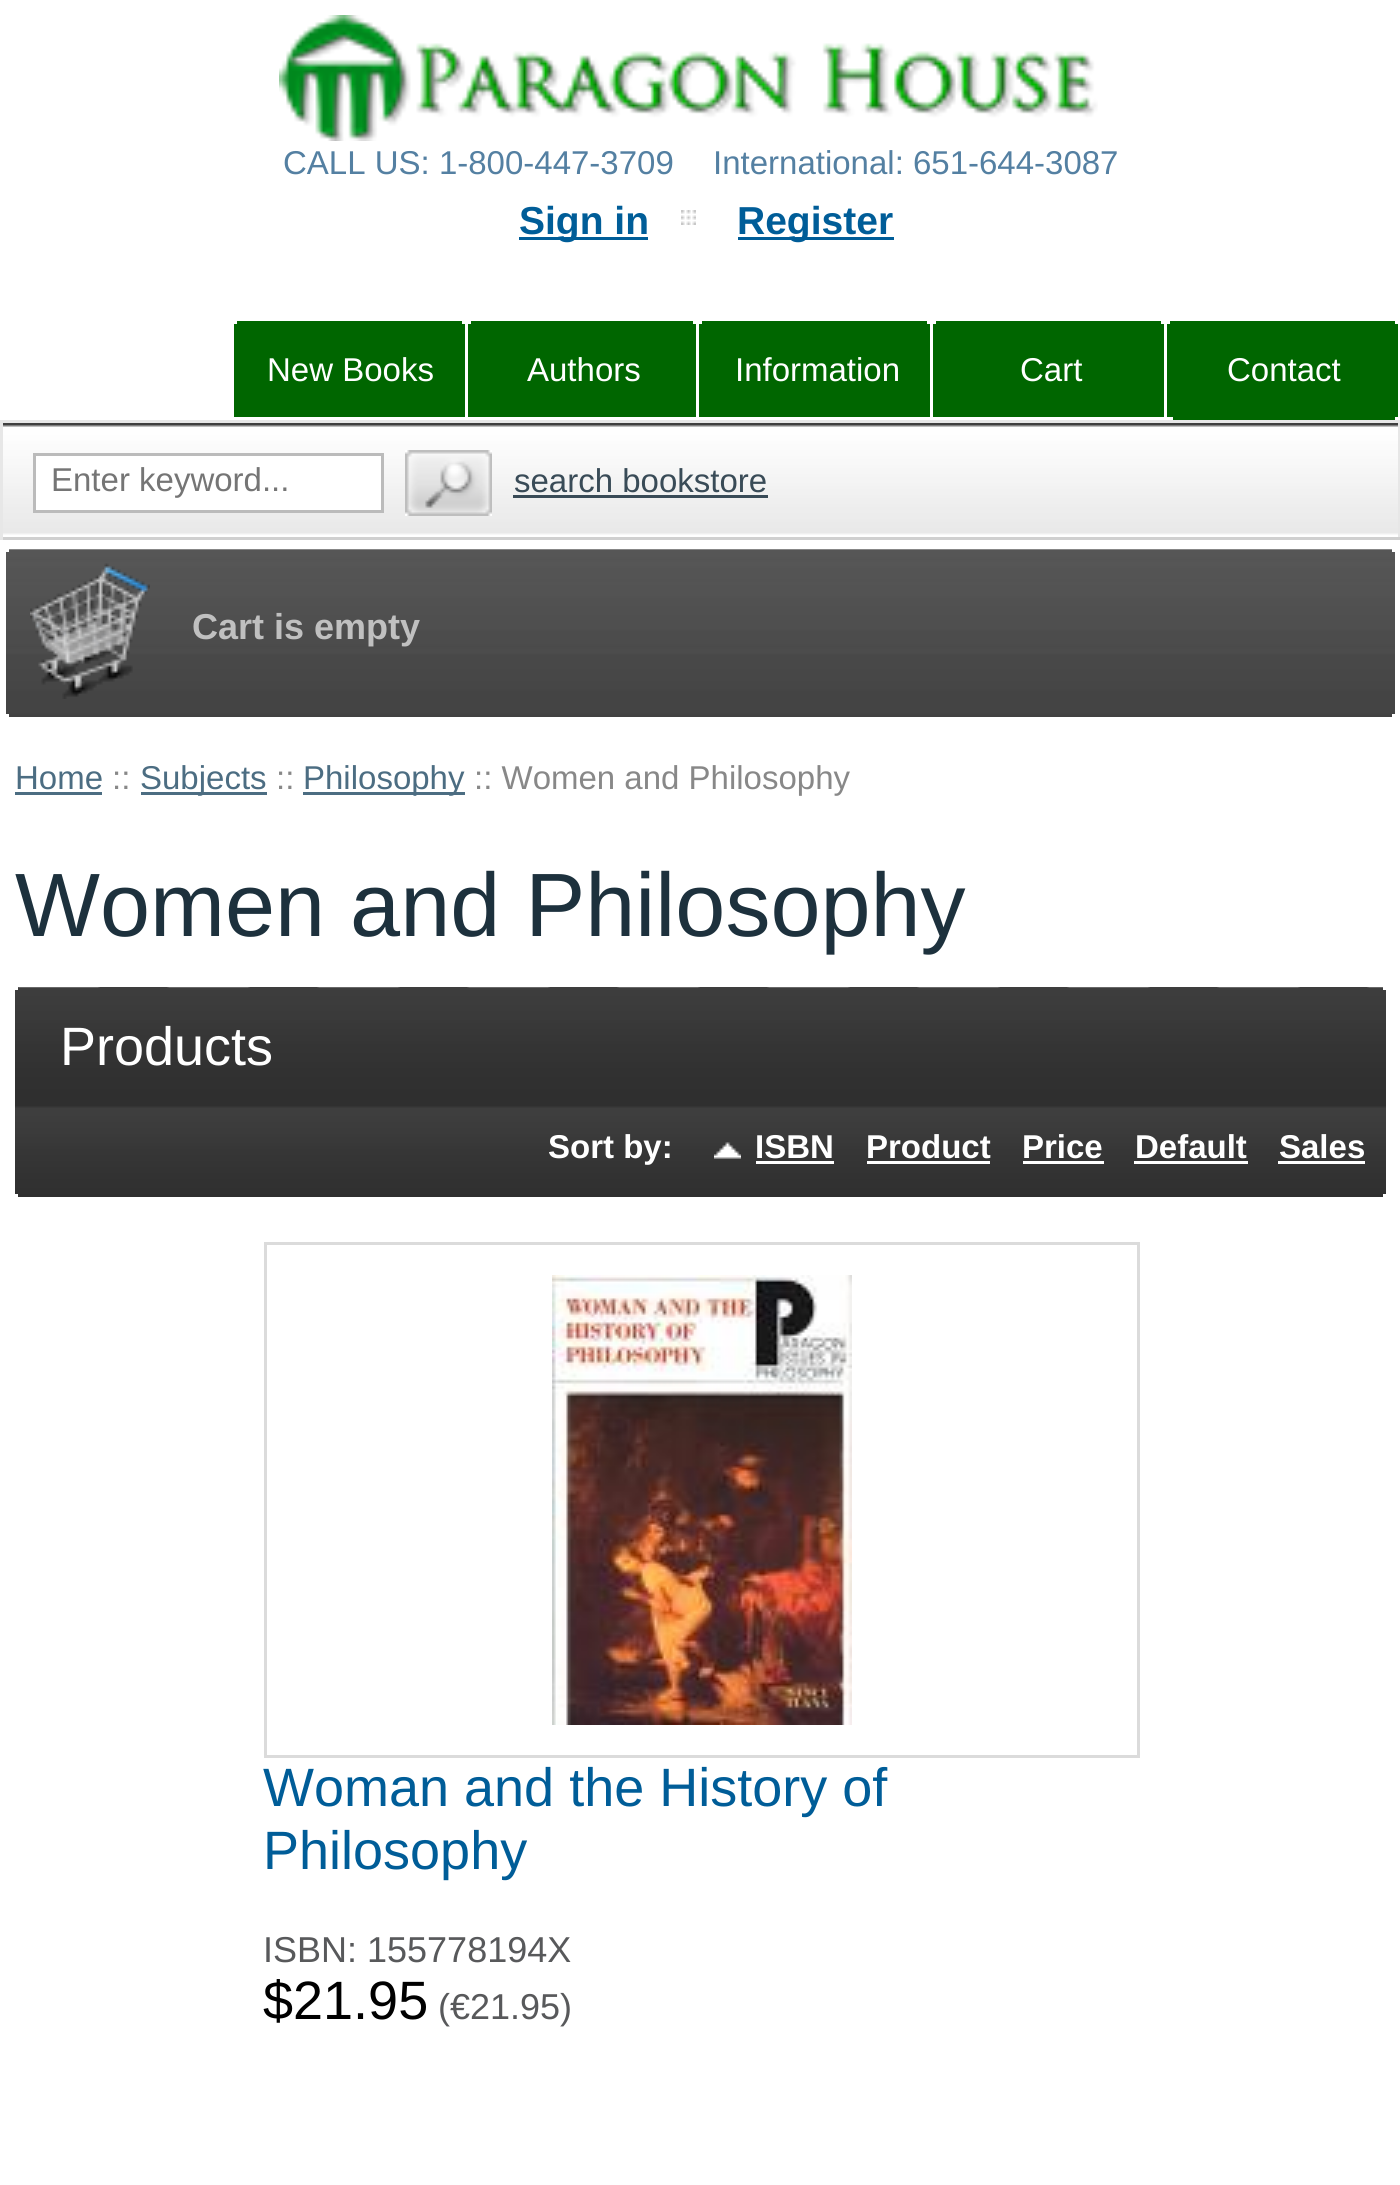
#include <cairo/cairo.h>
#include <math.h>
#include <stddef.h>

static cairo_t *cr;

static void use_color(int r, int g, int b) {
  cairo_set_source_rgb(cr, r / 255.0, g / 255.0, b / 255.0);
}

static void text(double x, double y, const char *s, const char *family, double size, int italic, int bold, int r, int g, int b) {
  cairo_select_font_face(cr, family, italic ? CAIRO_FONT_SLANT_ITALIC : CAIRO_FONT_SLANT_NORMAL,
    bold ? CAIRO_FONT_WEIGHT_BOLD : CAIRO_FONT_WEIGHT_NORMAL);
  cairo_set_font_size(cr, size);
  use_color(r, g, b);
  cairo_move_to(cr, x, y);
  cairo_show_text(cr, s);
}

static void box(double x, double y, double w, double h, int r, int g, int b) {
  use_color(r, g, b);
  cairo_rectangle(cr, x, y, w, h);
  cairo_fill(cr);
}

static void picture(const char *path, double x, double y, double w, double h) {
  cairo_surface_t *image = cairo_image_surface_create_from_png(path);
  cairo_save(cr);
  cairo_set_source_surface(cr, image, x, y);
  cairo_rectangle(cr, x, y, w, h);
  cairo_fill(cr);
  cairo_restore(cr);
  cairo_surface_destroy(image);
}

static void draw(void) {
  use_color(255, 255, 255);
  cairo_paint(cr);
  picture("img_01.png", 279, 15, 819, 126);
  picture("img_02.png", 681, 210, 15, 15);
  box(519, 237, 129, 3, 0, 93, 152);
  box(738, 237, 156, 3, 0, 93, 152);
  box(234, 321, 231, 96, 0, 102, 0);
  box(234, 321, 3, 3, 255, 255, 255);
  box(462, 321, 3, 3, 255, 255, 255);
  box(468, 321, 228, 96, 0, 102, 0);
  box(468, 321, 3, 3, 255, 255, 255);
  box(693, 321, 3, 3, 255, 255, 255);
  box(699, 321, 231, 96, 0, 102, 0);
  box(699, 321, 3, 3, 255, 255, 255);
  box(927, 321, 3, 3, 255, 255, 255);
  box(933, 321, 231, 96, 0, 102, 0);
  box(933, 321, 3, 3, 255, 255, 255);
  box(1161, 321, 3, 3, 255, 255, 255);
  box(1167, 321, 231, 96, 0, 102, 0);
  box(1167, 321, 3, 3, 255, 255, 255);
  box(1395, 321, 3, 3, 255, 255, 255);
  box(1173, 417, 222, 3, 0, 102, 0);
  picture("img_03.png", 3, 423, 1395, 112);
  box(0, 420, 1400, 3, 231, 231, 231);
  box(1398, 420, 2, 120, 231, 231, 231);
  box(0, 537, 1400, 3, 208, 208, 208);
  box(0, 420, 3, 120, 231, 231, 231);
  use_color(255, 255, 255);
  cairo_rectangle(cr, 34.5, 454.5, 348, 57);
  cairo_fill_preserve(cr);
  use_color(187, 187, 187);
  cairo_set_line_width(cr, 3);
  cairo_stroke(cr);
  box(405, 450, 87, 66, 255, 255, 255);
  picture("img_04.png", 405, 450, 87, 66);
  box(513, 495, 255, 3, 57, 75, 87);
  picture("img_05.png", 6, 549, 1389, 168);
  box(6, 549, 3, 3, 255, 255, 255);
  box(1392, 549, 3, 3, 255, 255, 255);
  picture("img_06.png", 30, 563, 120, 136);
  box(6, 714, 3, 3, 255, 255, 255);
  box(1392, 714, 3, 3, 255, 255, 255);
  box(15, 792, 87, 3, 76, 109, 130);
  box(141, 792, 126, 3, 76, 109, 130);
  box(303, 792, 162, 3, 76, 109, 130);
  box(18, 987, 1351, 1, 66, 66, 66);
  picture("img_07.png", 15, 987, 1371, 210);
  box(15, 987, 3, 3, 255, 255, 255);
  box(1383, 987, 3, 3, 255, 255, 255);
  picture("img_08.png", 714, 1142, 27, 17);
  box(756, 1161, 78, 3, 255, 255, 255);
  box(867, 1161, 123, 3, 255, 255, 255);
  box(1023, 1161, 81, 3, 255, 255, 255);
  box(1134, 1161, 114, 3, 255, 255, 255);
  box(1278, 1161, 87, 3, 255, 255, 255);
  box(15, 1194, 3, 3, 255, 255, 255);
  box(1383, 1194, 3, 3, 255, 255, 255);
  cairo_rectangle(cr, 265.5, 1243.5, 873, 513);
  use_color(219, 219, 219);
  cairo_stroke(cr);
  picture("img_09.png", 552, 1275, 300, 450);
  text(283, 174, "CALL US: 1-800-447-3709", "Liberation Sans", 33, 0, 0, 84, 128, 162);
  text(713, 174, "International: 651-644-3087", "Liberation Sans", 33, 0, 0, 84, 128, 162);
  text(519, 234, "Sign in", "Liberation Sans", 39, 0, 1, 0, 93, 152);
  text(737, 234, "Register", "Liberation Sans", 39, 0, 1, 0, 93, 152);
  text(267, 381, "New Books", "Liberation Sans", 33, 0, 0, 255, 255, 255);
  text(527, 381, "Authors", "Liberation Sans", 33, 0, 0, 255, 255, 255);
  text(735, 381, "Information", "Liberation Sans", 33, 0, 0, 255, 255, 255);
  text(1020, 381, "Cart", "Liberation Sans", 33, 0, 0, 255, 255, 255);
  text(1227, 381, "Contact", "Liberation Sans", 33, 0, 0, 255, 255, 255);
  text(51, 491, "Enter keyword...", "Liberation Sans", 33, 0, 0, 117, 117, 117);
  text(514, 492, "search bookstore", "Liberation Sans", 33, 0, 0, 57, 75, 87);
  text(192, 639, "Cart is empty", "Liberation Sans", 36, 0, 1, 192, 192, 192);
  text(15, 789, "Home", "Liberation Sans", 33, 0, 0, 76, 109, 130);
  text(112, 789, "::", "Liberation Sans", 33, 0, 0, 136, 136, 136);
  text(140, 789, "Subjects", "Liberation Sans", 33, 0, 0, 76, 109, 130);
  text(276, 789, "::", "Liberation Sans", 33, 0, 0, 136, 136, 136);
  text(303, 789, "Philosophy", "Liberation Sans", 33, 0, 0, 76, 109, 130);
  text(474, 789, ":: Women and Philosophy", "Liberation Sans", 33, 0, 0, 136, 136, 136);
  text(15, 936, "Women and Philosophy", "Liberation Sans", 90, 0, 0, 29, 49, 61);
  text(60, 1065, "Products", "Liberation Sans", 54, 0, 0, 255, 255, 255);
  text(548, 1158, "Sort by:", "Liberation Sans", 33, 0, 1, 255, 255, 255);
  text(755, 1158, "ISBN", "Liberation Sans", 33, 0, 1, 255, 255, 255);
  text(866, 1158, "Product", "Liberation Sans", 33, 0, 1, 255, 255, 255);
  text(1022, 1158, "Price", "Liberation Sans", 33, 0, 1, 255, 255, 255);
  text(1135, 1158, "Default", "Liberation Sans", 33, 0, 1, 255, 255, 255);
  text(1279, 1158, "Sales", "Liberation Sans", 33, 0, 1, 255, 255, 255);
  text(263, 1806, "Woman and the History of", "Liberation Sans", 54, 0, 0, 0, 93, 152);
  text(263, 1869, "Philosophy", "Liberation Sans", 54, 0, 0, 0, 93, 152);
  text(263, 1962, "ISBN: 155778194X", "Liberation Sans", 36, 0, 0, 88, 89, 91);
  text(263, 2019, "$21.95", "Liberation Sans", 54, 0, 0, 0, 0, 0);
  text(438, 2019, "(€21.95)", "Liberation Sans", 36, 0, 0, 88, 89, 91);
}

int main(void) {
  cairo_surface_t *surface = cairo_image_surface_create(CAIRO_FORMAT_RGB24, 1400, 2185);
  cr = cairo_create(surface);
  cairo_font_options_t *options = cairo_font_options_create();
  cairo_font_options_set_hint_metrics(options, CAIRO_HINT_METRICS_OFF);
  cairo_font_options_set_hint_style(options, CAIRO_HINT_STYLE_NONE);
  cairo_set_font_options(cr, options);
  cairo_set_miter_limit(cr, 4);
  draw();
  cairo_surface_write_to_png(surface, "out.png");
  cairo_font_options_destroy(options);
  cairo_destroy(cr);
  cairo_surface_destroy(surface);
  return 0;
}
